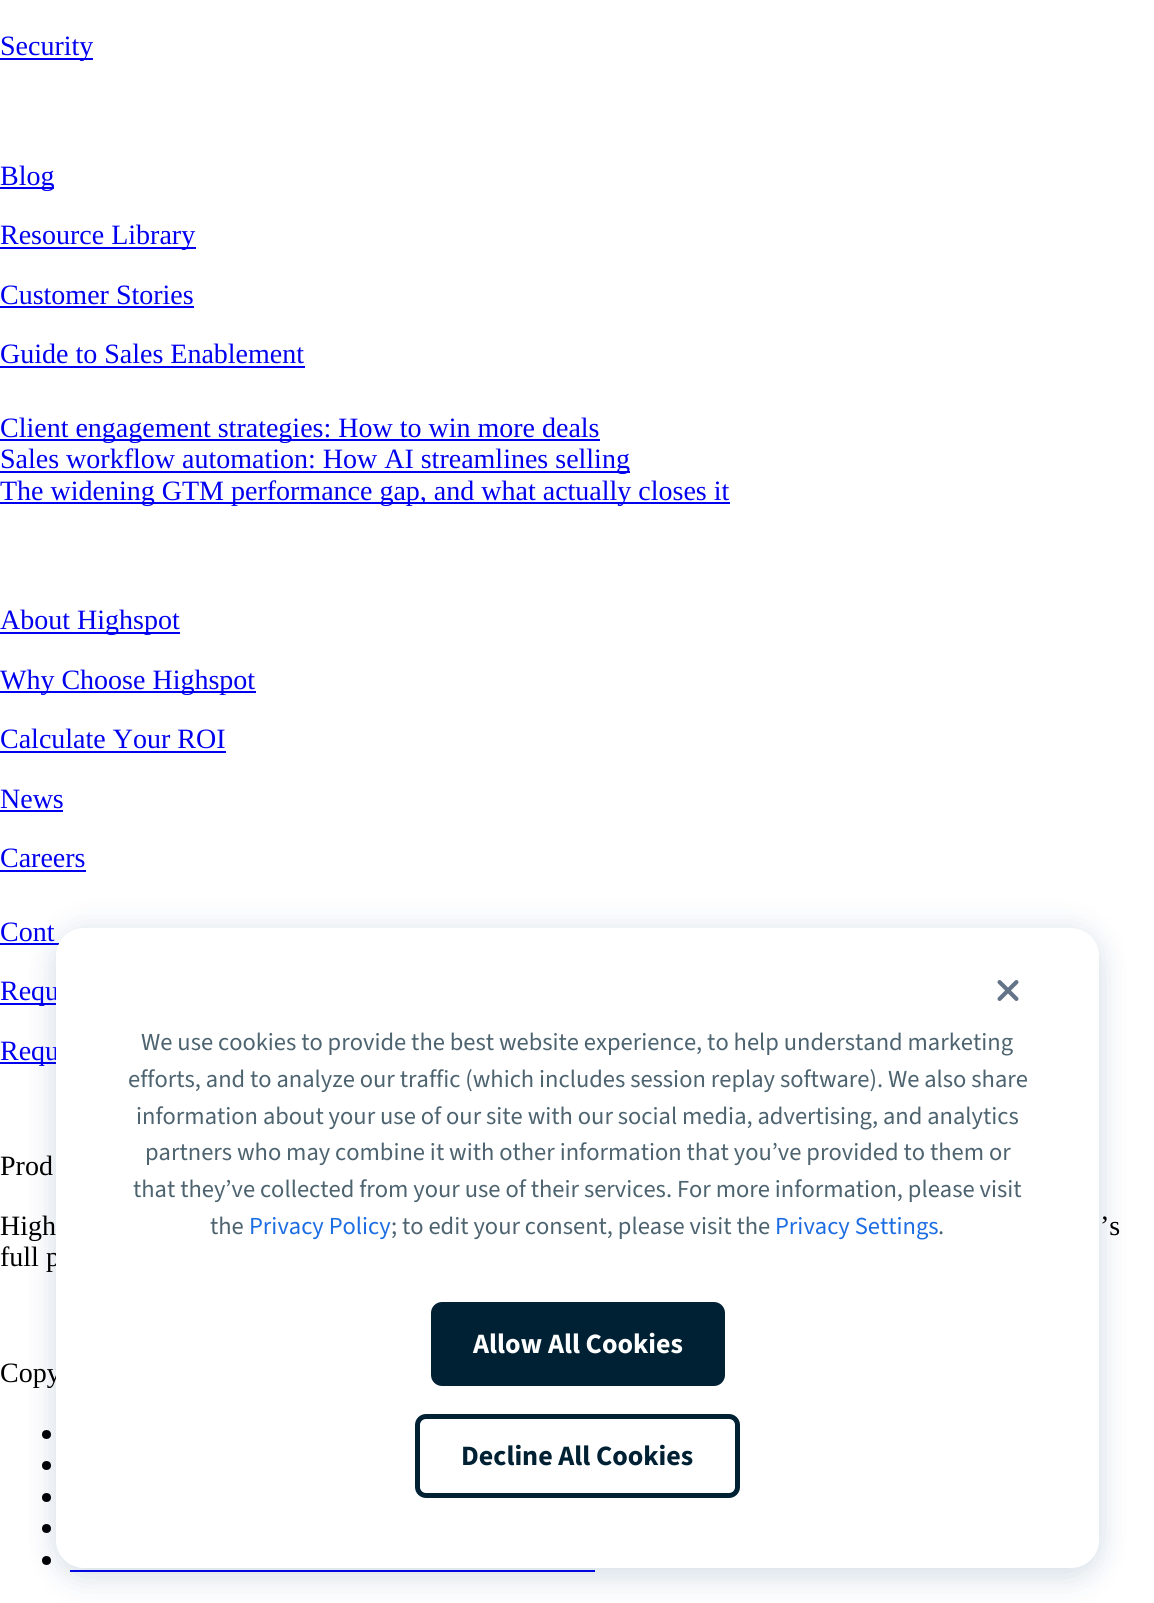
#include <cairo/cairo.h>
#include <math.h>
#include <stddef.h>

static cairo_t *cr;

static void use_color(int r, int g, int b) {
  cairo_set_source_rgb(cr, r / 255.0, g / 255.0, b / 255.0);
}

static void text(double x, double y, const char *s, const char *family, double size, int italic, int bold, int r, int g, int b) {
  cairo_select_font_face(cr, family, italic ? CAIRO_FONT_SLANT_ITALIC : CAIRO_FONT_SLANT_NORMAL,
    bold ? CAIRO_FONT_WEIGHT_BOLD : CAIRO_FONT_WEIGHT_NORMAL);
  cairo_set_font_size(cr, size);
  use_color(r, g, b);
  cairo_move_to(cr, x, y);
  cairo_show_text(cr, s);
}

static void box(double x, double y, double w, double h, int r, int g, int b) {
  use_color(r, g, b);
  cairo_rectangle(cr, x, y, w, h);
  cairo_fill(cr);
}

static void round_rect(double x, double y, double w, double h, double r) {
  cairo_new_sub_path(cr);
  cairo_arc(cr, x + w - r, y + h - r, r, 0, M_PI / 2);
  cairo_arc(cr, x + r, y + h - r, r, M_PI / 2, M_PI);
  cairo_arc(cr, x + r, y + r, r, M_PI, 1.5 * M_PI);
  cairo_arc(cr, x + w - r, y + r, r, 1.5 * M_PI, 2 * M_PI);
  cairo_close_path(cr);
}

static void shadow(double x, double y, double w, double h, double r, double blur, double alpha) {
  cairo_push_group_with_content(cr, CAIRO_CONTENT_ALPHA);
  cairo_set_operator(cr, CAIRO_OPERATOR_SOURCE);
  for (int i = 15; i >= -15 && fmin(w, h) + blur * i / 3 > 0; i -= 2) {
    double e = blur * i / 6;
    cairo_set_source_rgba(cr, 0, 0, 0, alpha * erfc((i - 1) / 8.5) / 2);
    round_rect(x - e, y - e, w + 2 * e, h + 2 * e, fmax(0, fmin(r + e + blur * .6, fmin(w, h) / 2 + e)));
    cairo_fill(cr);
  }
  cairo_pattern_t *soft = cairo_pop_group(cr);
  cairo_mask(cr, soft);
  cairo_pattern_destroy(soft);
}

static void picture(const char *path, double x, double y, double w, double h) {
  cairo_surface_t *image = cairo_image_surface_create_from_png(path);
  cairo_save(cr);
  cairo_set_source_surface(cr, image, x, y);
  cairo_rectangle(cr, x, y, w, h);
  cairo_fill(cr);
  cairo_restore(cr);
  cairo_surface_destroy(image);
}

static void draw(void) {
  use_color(255, 255, 255);
  cairo_paint(cr);
  box(0, 58, 93, 2, 0, 0, 238);
  box(0, 187, 54, 2, 0, 0, 238);
  box(0, 247, 196, 2, 0, 0, 238);
  box(0, 306, 194, 2, 0, 0, 238);
  box(0, 366, 305, 2, 0, 0, 238);
  box(0, 439, 600, 2, 0, 0, 238);
  box(0, 471, 630, 2, 0, 0, 238);
  box(0, 502, 730, 2, 0, 0, 238);
  box(0, 632, 180, 2, 0, 0, 238);
  box(0, 691, 256, 2, 0, 0, 238);
  box(0, 751, 226, 2, 0, 0, 238);
  box(0, 810, 63, 2, 0, 0, 238);
  box(0, 870, 86, 2, 0, 0, 238);
  box(0, 943, 60, 2, 0, 0, 238);
  box(0, 1003, 56, 2, 0, 0, 238);
  box(0, 1062, 56, 2, 0, 0, 238);
  use_color(0, 0, 0);
  cairo_arc(cr, 46.5, 1434.5, 4.5, 0, 2 * M_PI);
  cairo_fill(cr);
  cairo_arc(cr, 46.5, 1465.5, 4.5, 0, 2 * M_PI);
  cairo_fill(cr);
  cairo_arc(cr, 46.5, 1497.5, 4.5, 0, 2 * M_PI);
  cairo_fill(cr);
  cairo_arc(cr, 46.5, 1528.5, 4.5, 0, 2 * M_PI);
  cairo_fill(cr);
  cairo_arc(cr, 46.5, 1560.5, 4.5, 0, 2 * M_PI);
  cairo_fill(cr);
  box(70, 1570, 525, 2, 0, 0, 238);
  use_color(0, 59, 107);
  shadow(56, 926, 1043, 640, 28, 15, 0.1);
  shadow(56, 942, 1043, 640, 28, 15, 0.1);
  text(0, 55, "Security", "Liberation Serif", 28, 0, 0, 0, 0, 238);
  text(0, 185, "Blog", "Liberation Serif", 28, 0, 0, 0, 0, 238);
  text(0, 244, "Resource Library", "Liberation Serif", 28, 0, 0, 0, 0, 238);
  text(0, 304, "Customer Stories", "Liberation Serif", 28, 0, 0, 0, 0, 238);
  text(0, 363, "Guide to Sales Enablement", "Liberation Serif", 28, 0, 0, 0, 0, 238);
  text(0, 437, "Client engagement strategies: How to win more deals", "Liberation Serif", 28, 0, 0, 0, 0, 238);
  text(0, 468, "Sales workflow automation: How AI streamlines selling", "Liberation Serif", 28, 0, 0, 0, 0, 238);
  text(0, 500, "The widening GTM performance gap, and what actually closes it", "Liberation Serif", 28, 0, 0, 0, 0, 238);
  text(0, 629, "About Highspot", "Liberation Serif", 28, 0, 0, 0, 0, 238);
  text(0, 689, "Why Choose Highspot", "Liberation Serif", 28, 0, 0, 0, 0, 238);
  text(0, 748, "Calculate Your ROI", "Liberation Serif", 28, 0, 0, 0, 0, 238);
  text(0, 808, "News", "Liberation Serif", 28, 0, 0, 0, 0, 238);
  text(0, 867, "Careers", "Liberation Serif", 28, 0, 0, 0, 0, 238);
  text(0, 941, "Cont", "Liberation Serif", 28, 0, 0, 0, 0, 238);
  text(0, 1000, "Requ", "Liberation Serif", 28, 0, 0, 0, 0, 238);
  text(0, 1060, "Requ", "Liberation Serif", 28, 0, 0, 0, 0, 238);
  text(0, 1175, "Prod", "Liberation Serif", 28, 0, 0, 0, 0, 0);
  text(0, 1235, "High", "Liberation Serif", 28, 0, 0, 0, 0, 0);
  text(1100, 1235, "’s", "Liberation Serif", 28, 0, 0, 0, 0, 0);
  text(0, 1266, "full p", "Liberation Serif", 28, 0, 0, 0, 0, 0);
  text(0, 1382, "Copy", "Liberation Serif", 28, 0, 0, 0, 0, 0);
  use_color(255, 255, 255);
  round_rect(56, 928, 1043, 640, 28);
  cairo_fill(cr);
  picture("img_01.png", 997, 980, 22, 21);
  text(141, 1050, "We use cookies to provide the best website experience, to help understand marketing", "Source Sans 3", 24.5, 0, 0, 77, 100, 112);
  text(128, 1087, "efforts, and to analyze our traffic (which includes session replay software). We also share", "Source Sans 3", 24.5, 0, 0, 77, 100, 112);
  text(136, 1124, "information about your use of our site with our social media, advertising, and analytics", "Source Sans 3", 24.5, 0, 0, 77, 100, 112);
  text(145, 1160, "partners who may combine it with other information that you’ve provided to them or", "Source Sans 3", 24.5, 0, 0, 77, 100, 112);
  text(133, 1197, "that they’ve collected from your use of their services. For more information, please visit", "Source Sans 3", 24.5, 0, 0, 77, 100, 112);
  text(210, 1234, "the", "Source Sans 3", 24.5, 0, 0, 77, 100, 112);
  text(249, 1234, "Privacy Policy", "Source Sans 3", 24.5, 0, 0, 29, 109, 226);
  text(391, 1234, "; to edit your consent, please visit the", "Source Sans 3", 24.5, 0, 0, 77, 100, 112);
  text(775, 1234, "Privacy Settings", "Source Sans 3", 24.5, 0, 0, 29, 109, 226);
  text(938, 1234, ".", "Source Sans 3", 24.5, 0, 0, 77, 100, 112);
  use_color(0, 33, 51);
  round_rect(431, 1302, 294, 84, 11);
  cairo_fill(cr);
  text(473, 1353, "Allow All Cookies", "Source Sans 3", 28, 0, 1, 255, 255, 255);
  round_rect(417.5, 1416.5, 320, 79, 8.5);
  use_color(0, 33, 51);
  cairo_set_line_width(cr, 5);
  cairo_stroke(cr);
  text(461, 1465, "Decline All Cookies", "Source Sans 3", 28, 0, 1, 0, 33, 51);
}

int main(void) {
  cairo_surface_t *surface = cairo_image_surface_create(CAIRO_FORMAT_RGB24, 1154, 1603);
  cr = cairo_create(surface);
  cairo_font_options_t *options = cairo_font_options_create();
  cairo_font_options_set_hint_metrics(options, CAIRO_HINT_METRICS_OFF);
  cairo_font_options_set_hint_style(options, CAIRO_HINT_STYLE_NONE);
  cairo_set_font_options(cr, options);
  cairo_set_miter_limit(cr, 4);
  draw();
  cairo_surface_write_to_png(surface, "out.png");
  cairo_font_options_destroy(options);
  cairo_destroy(cr);
  cairo_surface_destroy(surface);
  return 0;
}
